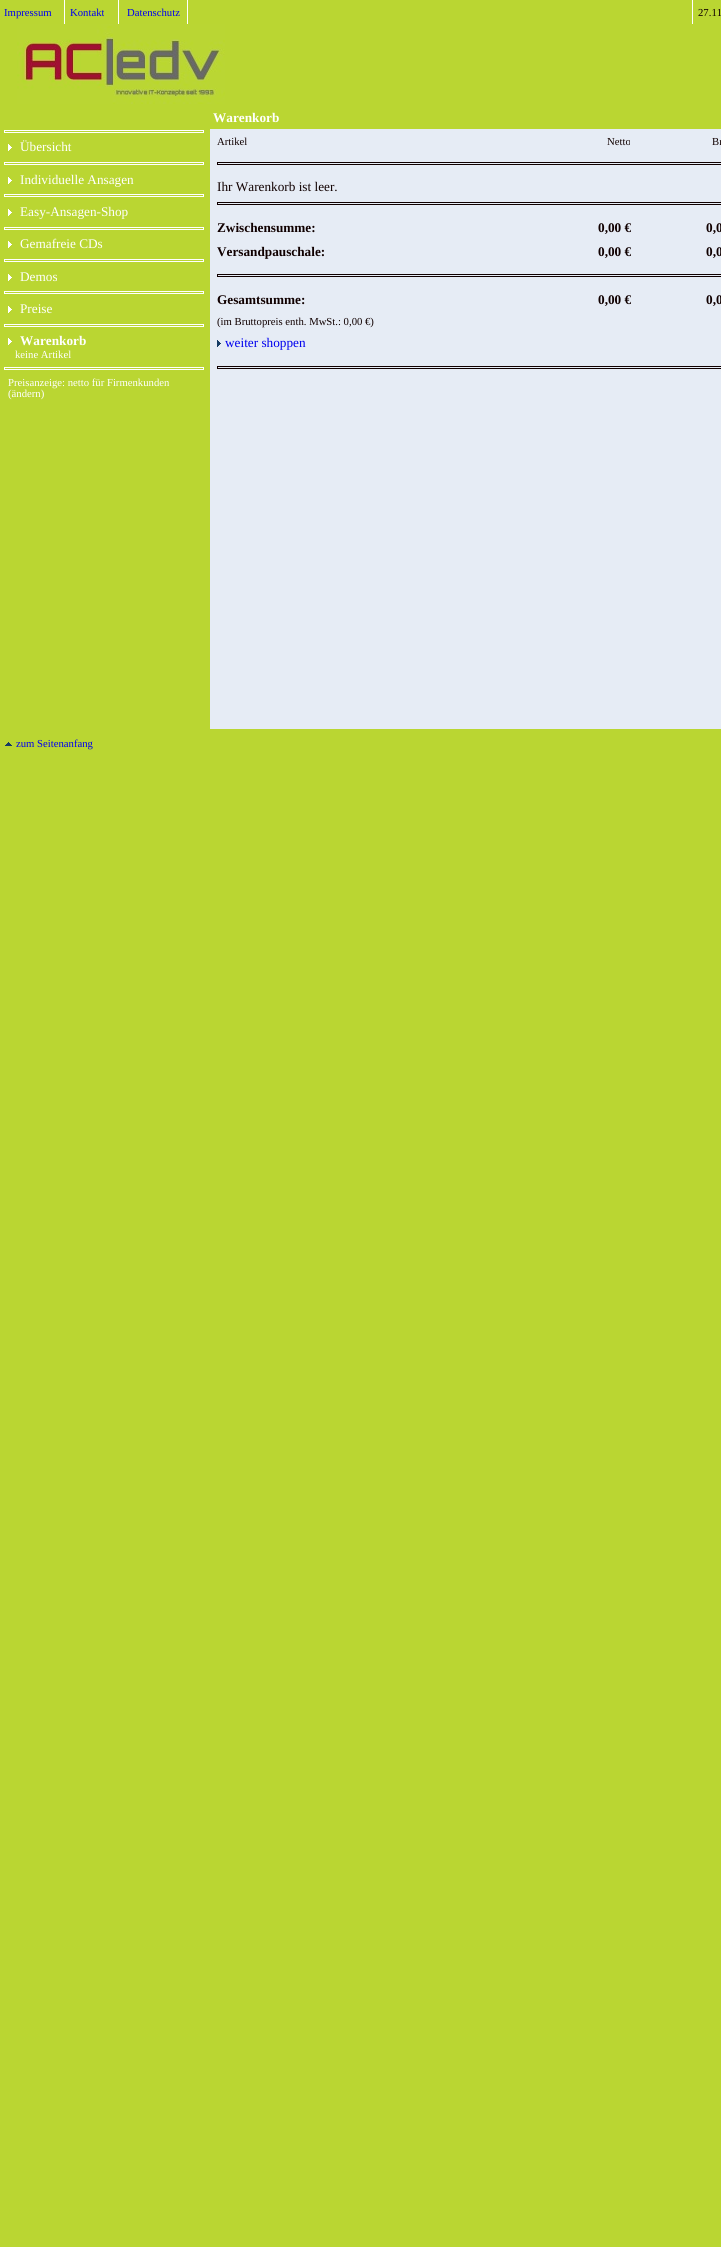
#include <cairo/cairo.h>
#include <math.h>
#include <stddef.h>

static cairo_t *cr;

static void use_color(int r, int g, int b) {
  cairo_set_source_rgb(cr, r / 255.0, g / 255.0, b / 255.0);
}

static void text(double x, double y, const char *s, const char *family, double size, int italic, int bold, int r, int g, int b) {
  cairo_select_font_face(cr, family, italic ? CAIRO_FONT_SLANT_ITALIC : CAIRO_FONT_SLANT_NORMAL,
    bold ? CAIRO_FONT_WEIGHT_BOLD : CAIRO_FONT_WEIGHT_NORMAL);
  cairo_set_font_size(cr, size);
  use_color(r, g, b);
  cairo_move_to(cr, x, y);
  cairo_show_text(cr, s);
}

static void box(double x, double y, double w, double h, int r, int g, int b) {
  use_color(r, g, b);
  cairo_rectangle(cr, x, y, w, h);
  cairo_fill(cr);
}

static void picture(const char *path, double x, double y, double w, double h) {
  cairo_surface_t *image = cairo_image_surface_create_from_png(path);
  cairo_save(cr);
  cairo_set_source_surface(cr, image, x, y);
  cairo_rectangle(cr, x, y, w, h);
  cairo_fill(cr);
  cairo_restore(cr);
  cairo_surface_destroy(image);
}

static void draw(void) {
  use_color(186, 214, 50);
  cairo_paint(cr);
  box(64, 0, 1, 24, 255, 255, 255);
  box(118, 0, 1, 24, 255, 255, 255);
  box(187, 0, 1, 24, 255, 255, 255);
  box(692, 0, 1, 24, 255, 255, 255);
  picture("img_01.png", 17, 24, 208, 80);
  cairo_rectangle(cr, 4.5, 130.5, 199, 2);
  cairo_set_line_width(cr, 1);
  cairo_stroke(cr);
  picture("img_02.png", 8, 144, 4, 7);
  cairo_rectangle(cr, 4.5, 162.5, 199, 2);
  cairo_stroke(cr);
  picture("img_02.png", 8, 177, 4, 7);
  cairo_rectangle(cr, 4.5, 194.5, 199, 2);
  cairo_stroke(cr);
  picture("img_02.png", 8, 209, 4, 7);
  cairo_rectangle(cr, 4.5, 227.5, 199, 2);
  cairo_stroke(cr);
  picture("img_02.png", 8, 241, 4, 7);
  cairo_rectangle(cr, 4.5, 259.5, 199, 2);
  cairo_stroke(cr);
  picture("img_02.png", 8, 274, 4, 7);
  cairo_rectangle(cr, 4.5, 291.5, 199, 2);
  cairo_stroke(cr);
  picture("img_02.png", 8, 306, 4, 7);
  cairo_rectangle(cr, 4.5, 324.5, 199, 2);
  cairo_stroke(cr);
  picture("img_02.png", 8, 338, 4, 7);
  cairo_rectangle(cr, 4.5, 367.5, 199, 2);
  cairo_stroke(cr);
  box(210, 129, 511, 600, 230, 236, 245);
  cairo_rectangle(cr, 217.5, 162.5, 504, 2);
  use_color(16, 0, 0);
  cairo_stroke(cr);
  cairo_rectangle(cr, 217.5, 202.5, 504, 2);
  cairo_stroke(cr);
  cairo_rectangle(cr, 217.5, 274.5, 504, 2);
  cairo_stroke(cr);
  picture("img_03.png", 217, 340, 4, 7);
  cairo_rectangle(cr, 217.5, 366.5, 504, 2);
  cairo_stroke(cr);
  picture("img_04.png", 5, 742, 7, 4);
  text(4, 16, "Impressum", "Liberation Serif", 10.7, 0, 0, 0, 0, 238);
  text(70, 16, "Kontakt", "Liberation Serif", 10.7, 0, 0, 0, 0, 238);
  text(127, 16, "Datenschutz", "Liberation Serif", 10.7, 0, 0, 0, 0, 238);
  text(698, 16, "27.11", "Liberation Serif", 10.7, 0, 0, 16, 0, 0);
  text(20, 151, "Übersicht", "Liberation Serif", 13.25, 0, 0, 255, 255, 255);
  text(20, 184, "Individuelle Ansagen", "Liberation Serif", 13.25, 0, 0, 255, 255, 255);
  text(20, 216, "Easy-Ansagen-Shop", "Liberation Serif", 13.25, 0, 0, 255, 255, 255);
  text(20, 248, "Gemafreie CDs", "Liberation Serif", 13.25, 0, 0, 255, 255, 255);
  text(20, 281, "Demos", "Liberation Serif", 13.25, 0, 0, 255, 255, 255);
  text(20, 313, "Preise", "Liberation Serif", 13.25, 0, 0, 255, 255, 255);
  text(20, 345, "Warenkorb", "Liberation Serif", 13.25, 0, 1, 255, 255, 255);
  text(15, 358, "keine Artikel", "Liberation Serif", 10.7, 0, 0, 255, 255, 255);
  text(8, 386, "Preisanzeige: netto für Firmenkunden", "Liberation Serif", 10.7, 0, 0, 255, 255, 255);
  text(8, 397, "(ändern)", "Liberation Serif", 10.7, 0, 0, 255, 255, 255);
  text(213, 122, "Warenkorb", "Liberation Serif", 13.25, 0, 1, 255, 255, 255);
  text(217, 145, "Artikel", "Liberation Serif", 10.7, 0, 0, 16, 0, 0);
  text(607, 145, "Netto", "Liberation Serif", 10.7, 0, 0, 16, 0, 0);
  text(712, 145, "Br", "Liberation Serif", 10.7, 0, 0, 16, 0, 0);
  text(217, 191, "Ihr Warenkorb ist leer.", "Liberation Serif", 13.25, 0, 0, 16, 0, 0);
  text(217, 232, "Zwischensumme:", "Liberation Serif", 13.25, 0, 1, 16, 0, 0);
  text(598, 232, "0,00 €", "Liberation Serif", 13.25, 0, 1, 16, 0, 0);
  text(706, 232, "0,0", "Liberation Serif", 13.25, 0, 1, 16, 0, 0);
  text(217, 256, "Versandpauschale:", "Liberation Serif", 13.25, 0, 1, 16, 0, 0);
  text(598, 256, "0,00 €", "Liberation Serif", 13.25, 0, 1, 16, 0, 0);
  text(706, 256, "0,0", "Liberation Serif", 13.25, 0, 1, 16, 0, 0);
  text(217, 304, "Gesamtsumme:", "Liberation Serif", 13.25, 0, 1, 16, 0, 0);
  text(598, 304, "0,00 €", "Liberation Serif", 13.25, 0, 1, 16, 0, 0);
  text(706, 304, "0,0", "Liberation Serif", 13.25, 0, 1, 16, 0, 0);
  text(217, 325, "(im Bruttopreis enth. MwSt.: 0,00 €)", "Liberation Serif", 10.7, 0, 0, 16, 0, 0);
  text(225, 347, "weiter shoppen", "Liberation Serif", 13.25, 0, 0, 0, 0, 238);
  text(16, 747, "zum Seitenanfang", "Liberation Serif", 10.7, 0, 0, 0, 0, 238);
}

int main(void) {
  cairo_surface_t *surface = cairo_image_surface_create(CAIRO_FORMAT_RGB24, 721, 2247);
  cr = cairo_create(surface);
  cairo_font_options_t *options = cairo_font_options_create();
  cairo_font_options_set_hint_metrics(options, CAIRO_HINT_METRICS_OFF);
  cairo_font_options_set_hint_style(options, CAIRO_HINT_STYLE_NONE);
  cairo_set_font_options(cr, options);
  cairo_set_miter_limit(cr, 4);
  draw();
  cairo_surface_write_to_png(surface, "out.png");
  cairo_font_options_destroy(options);
  cairo_destroy(cr);
  cairo_surface_destroy(surface);
  return 0;
}
